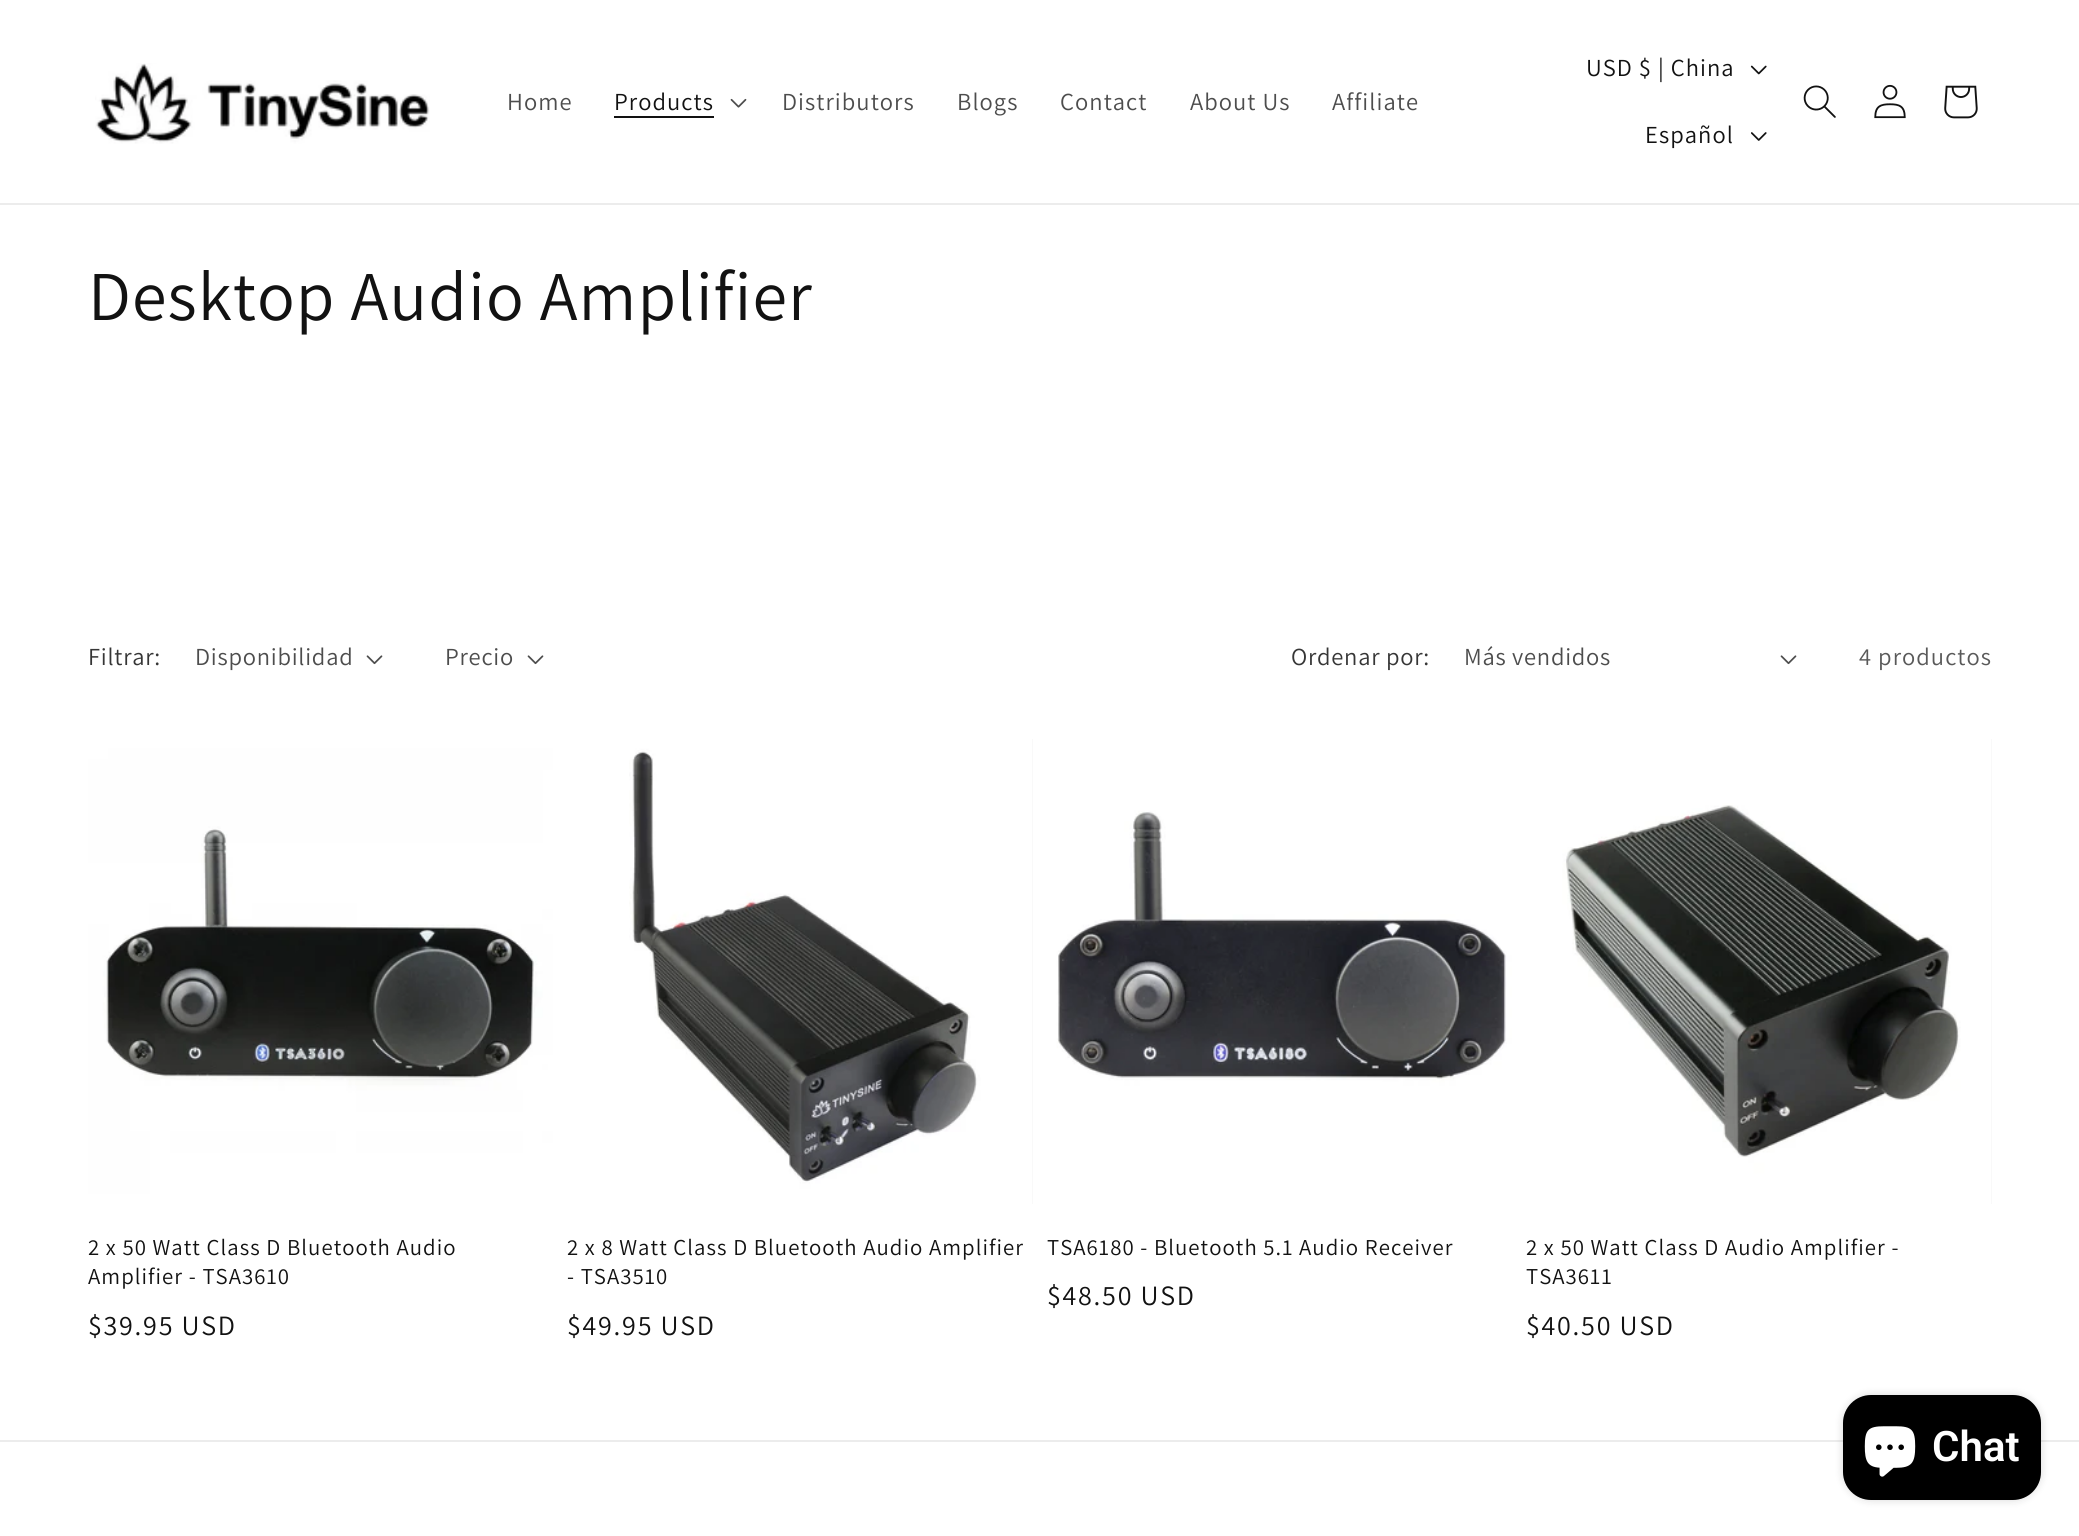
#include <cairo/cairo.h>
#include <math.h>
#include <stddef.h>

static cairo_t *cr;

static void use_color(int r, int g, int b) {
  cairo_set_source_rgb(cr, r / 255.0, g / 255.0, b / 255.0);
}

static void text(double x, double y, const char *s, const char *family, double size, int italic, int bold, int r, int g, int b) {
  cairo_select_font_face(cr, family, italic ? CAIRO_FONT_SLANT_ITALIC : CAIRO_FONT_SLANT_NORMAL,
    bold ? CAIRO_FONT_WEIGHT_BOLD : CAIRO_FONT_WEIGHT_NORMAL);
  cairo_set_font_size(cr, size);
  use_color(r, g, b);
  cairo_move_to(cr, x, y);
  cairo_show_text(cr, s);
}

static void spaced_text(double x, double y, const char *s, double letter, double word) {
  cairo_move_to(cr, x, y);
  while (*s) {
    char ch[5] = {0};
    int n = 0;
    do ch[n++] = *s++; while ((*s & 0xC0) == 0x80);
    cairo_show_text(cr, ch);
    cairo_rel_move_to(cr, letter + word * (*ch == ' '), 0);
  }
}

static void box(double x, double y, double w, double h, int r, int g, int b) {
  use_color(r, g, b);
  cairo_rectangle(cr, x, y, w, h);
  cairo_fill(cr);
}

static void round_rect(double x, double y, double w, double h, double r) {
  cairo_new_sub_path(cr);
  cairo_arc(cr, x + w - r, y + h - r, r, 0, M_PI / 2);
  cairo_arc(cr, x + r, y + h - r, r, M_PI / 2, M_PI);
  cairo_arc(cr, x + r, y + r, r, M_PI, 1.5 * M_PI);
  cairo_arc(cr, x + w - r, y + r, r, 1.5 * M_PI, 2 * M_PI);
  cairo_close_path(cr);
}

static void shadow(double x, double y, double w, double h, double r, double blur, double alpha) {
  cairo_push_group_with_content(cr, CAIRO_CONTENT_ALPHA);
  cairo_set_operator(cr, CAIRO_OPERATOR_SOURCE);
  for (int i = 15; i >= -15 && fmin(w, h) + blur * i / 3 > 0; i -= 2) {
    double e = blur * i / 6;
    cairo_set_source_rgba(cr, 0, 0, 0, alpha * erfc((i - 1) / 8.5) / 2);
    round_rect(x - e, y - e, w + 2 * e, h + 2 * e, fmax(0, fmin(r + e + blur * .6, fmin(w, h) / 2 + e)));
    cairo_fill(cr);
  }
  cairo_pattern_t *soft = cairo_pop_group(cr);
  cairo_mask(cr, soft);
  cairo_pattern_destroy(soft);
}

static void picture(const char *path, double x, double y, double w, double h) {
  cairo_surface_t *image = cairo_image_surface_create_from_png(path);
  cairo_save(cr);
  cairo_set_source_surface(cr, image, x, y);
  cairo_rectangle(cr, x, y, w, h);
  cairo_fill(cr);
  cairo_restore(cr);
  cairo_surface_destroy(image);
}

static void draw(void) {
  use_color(255, 255, 255);
  cairo_paint(cr);
  box(0, 203, 2079, 2, 236, 236, 236);
  picture("img_01.png", 95, 63, 335, 81);
  box(614, 116, 100, 2, 18, 18, 18);
  picture("img_02.png", 730, 98, 17, 10);
  picture("img_03.png", 1750, 65, 17, 10);
  picture("img_04.png", 1751, 132, 16, 9);
  picture("img_05.png", 1803, 85, 33, 33);
  picture("img_06.png", 1874, 84, 32, 35);
  picture("img_07.png", 1944, 85, 34, 34);
  picture("img_08.png", 366, 655, 17, 10);
  picture("img_08.png", 527, 655, 17, 10);
  picture("img_08.png", 1780, 655, 17, 10);
  picture("img_09.png", 88, 739, 465, 465);
  box(1032, 739, 1, 465, 243, 243, 243);
  picture("img_10.png", 567, 739, 466, 465);
  picture("img_11.png", 1047, 739, 465, 465);
  box(1991, 739, 1, 465, 243, 243, 243);
  picture("img_12.png", 1526, 739, 466, 465);
  box(0, 1440, 2079, 2, 236, 236, 236);
  use_color(0, 0, 0);
  shadow(1843, 1395, 198, 105, 28, 4.5, 0.15);
  use_color(0, 0, 0);
  round_rect(1843, 1395, 198, 105, 28);
  cairo_fill(cr);
  picture("img_13.png", 1864, 1426, 52, 51);
  cairo_select_font_face(cr, "Assistant", CAIRO_FONT_SLANT_NORMAL, CAIRO_FONT_WEIGHT_NORMAL);
  cairo_set_font_size(cr, 24.5);
  use_color(77, 77, 77);
  spaced_text(507, 110, "Home", 1.05, 0);
  use_color(18, 18, 18);
  spaced_text(614, 110, "Products", 1.05, 0);
  use_color(77, 77, 77);
  spaced_text(782, 110, "Distributors", 1.05, 0);
  spaced_text(957, 110, "Blogs", 1.05, 0);
  spaced_text(1060, 110, "Contact", 1.05, 0);
  spaced_text(1190, 110, "About Us", 1.05, 0);
  spaced_text(1332, 110, "Affiliate", 1.05, 0);
  use_color(18, 18, 18);
  spaced_text(1586, 76, "USD $ | China", 1.05, 0);
  spaced_text(1645, 143, "Español", 1.05, 0);
  cairo_set_font_size(cr, 70);
  spaced_text(88, 320, "Desktop Audio Amplifier", 1.05, 0);
  cairo_set_font_size(cr, 24.5);
  use_color(54, 54, 54);
  spaced_text(88, 665, "Filtrar:", 0.75, 0);
  use_color(77, 77, 77);
  spaced_text(195, 665, "Disponibilidad", 0.75, 0);
  spaced_text(445, 665, "Precio", 0.75, 0);
  use_color(54, 54, 54);
  spaced_text(1291, 665, "Ordenar por:", 0.75, 0);
  use_color(77, 77, 77);
  spaced_text(1464, 665, "Más vendidos", 0.75, 0);
  use_color(89, 89, 89);
  spaced_text(1859, 665, "4 productos", 1.05, 0);
  cairo_set_font_size(cr, 22.75);
  use_color(18, 18, 18);
  spaced_text(88, 1255, "2 x 50 Watt Class D Bluetooth Audio", 1.05, 0);
  spaced_text(88, 1284, "Amplifier - TSA3610", 1.05, 0);
  cairo_set_font_size(cr, 28);
  spaced_text(88, 1335, "$39.95 USD", 1.75, 0);
  cairo_set_font_size(cr, 22.75);
  spaced_text(567, 1255, "2 x 8 Watt Class D Bluetooth Audio Amplifier", 1.05, 0);
  spaced_text(567, 1284, "- TSA3510", 1.05, 0);
  cairo_set_font_size(cr, 28);
  spaced_text(567, 1335, "$49.95 USD", 1.75, 0);
  cairo_set_font_size(cr, 22.75);
  spaced_text(1047, 1255, "TSA6180 - Bluetooth 5.1 Audio Receiver", 1.05, 0);
  cairo_set_font_size(cr, 28);
  spaced_text(1047, 1305, "$48.50 USD", 1.75, 0);
  cairo_set_font_size(cr, 22.75);
  spaced_text(1526, 1255, "2 x 50 Watt Class D Audio Amplifier -", 1.05, 0);
  spaced_text(1526, 1284, "TSA3611", 1.05, 0);
  cairo_set_font_size(cr, 28);
  spaced_text(1526, 1335, "$40.50 USD", 1.75, 0);
  text(1932, 1461, "Chat", "Roboto SemiBold", 42, 0, 0, 255, 255, 255);
}

int main(void) {
  cairo_surface_t *surface = cairo_image_surface_create(CAIRO_FORMAT_RGB24, 2079, 1536);
  cr = cairo_create(surface);
  cairo_font_options_t *options = cairo_font_options_create();
  cairo_font_options_set_hint_metrics(options, CAIRO_HINT_METRICS_OFF);
  cairo_font_options_set_hint_style(options, CAIRO_HINT_STYLE_NONE);
  cairo_set_font_options(cr, options);
  cairo_set_miter_limit(cr, 4);
  draw();
  cairo_surface_write_to_png(surface, "out.png");
  cairo_font_options_destroy(options);
  cairo_destroy(cr);
  cairo_surface_destroy(surface);
  return 0;
}
